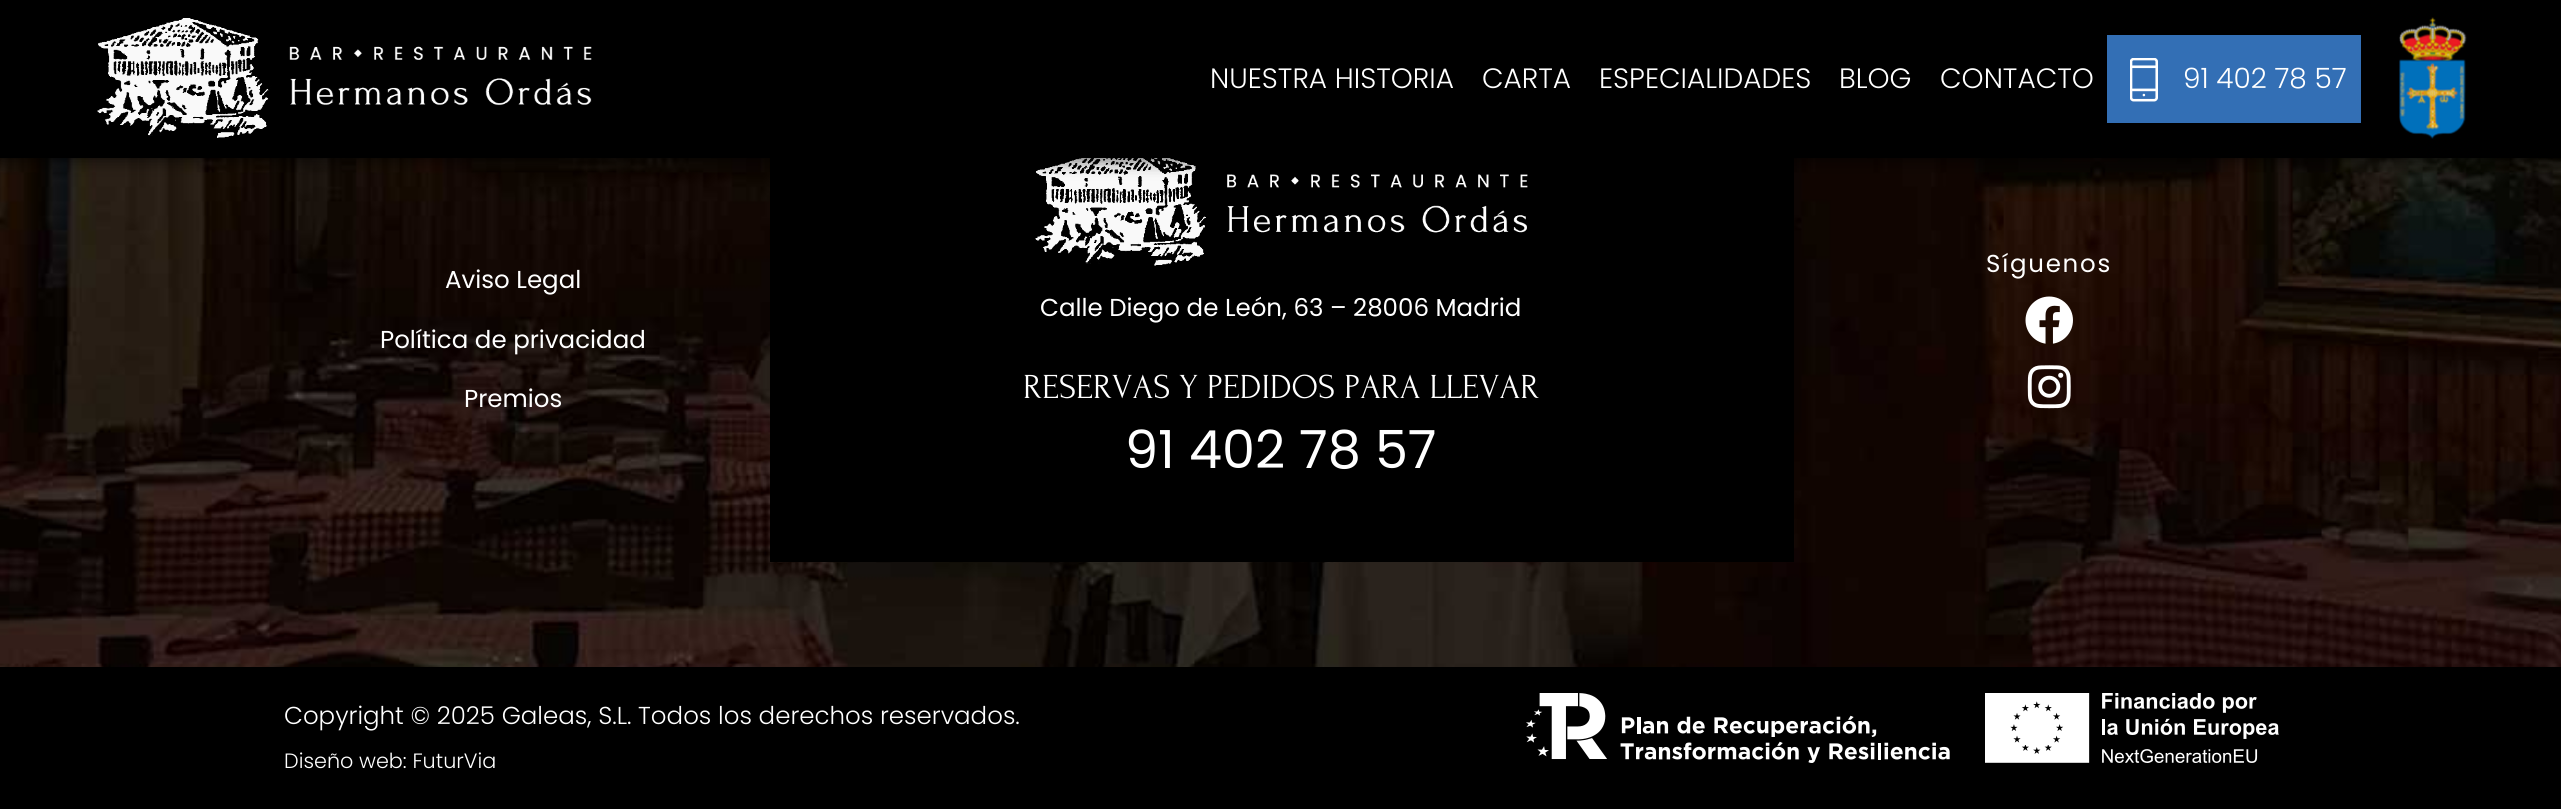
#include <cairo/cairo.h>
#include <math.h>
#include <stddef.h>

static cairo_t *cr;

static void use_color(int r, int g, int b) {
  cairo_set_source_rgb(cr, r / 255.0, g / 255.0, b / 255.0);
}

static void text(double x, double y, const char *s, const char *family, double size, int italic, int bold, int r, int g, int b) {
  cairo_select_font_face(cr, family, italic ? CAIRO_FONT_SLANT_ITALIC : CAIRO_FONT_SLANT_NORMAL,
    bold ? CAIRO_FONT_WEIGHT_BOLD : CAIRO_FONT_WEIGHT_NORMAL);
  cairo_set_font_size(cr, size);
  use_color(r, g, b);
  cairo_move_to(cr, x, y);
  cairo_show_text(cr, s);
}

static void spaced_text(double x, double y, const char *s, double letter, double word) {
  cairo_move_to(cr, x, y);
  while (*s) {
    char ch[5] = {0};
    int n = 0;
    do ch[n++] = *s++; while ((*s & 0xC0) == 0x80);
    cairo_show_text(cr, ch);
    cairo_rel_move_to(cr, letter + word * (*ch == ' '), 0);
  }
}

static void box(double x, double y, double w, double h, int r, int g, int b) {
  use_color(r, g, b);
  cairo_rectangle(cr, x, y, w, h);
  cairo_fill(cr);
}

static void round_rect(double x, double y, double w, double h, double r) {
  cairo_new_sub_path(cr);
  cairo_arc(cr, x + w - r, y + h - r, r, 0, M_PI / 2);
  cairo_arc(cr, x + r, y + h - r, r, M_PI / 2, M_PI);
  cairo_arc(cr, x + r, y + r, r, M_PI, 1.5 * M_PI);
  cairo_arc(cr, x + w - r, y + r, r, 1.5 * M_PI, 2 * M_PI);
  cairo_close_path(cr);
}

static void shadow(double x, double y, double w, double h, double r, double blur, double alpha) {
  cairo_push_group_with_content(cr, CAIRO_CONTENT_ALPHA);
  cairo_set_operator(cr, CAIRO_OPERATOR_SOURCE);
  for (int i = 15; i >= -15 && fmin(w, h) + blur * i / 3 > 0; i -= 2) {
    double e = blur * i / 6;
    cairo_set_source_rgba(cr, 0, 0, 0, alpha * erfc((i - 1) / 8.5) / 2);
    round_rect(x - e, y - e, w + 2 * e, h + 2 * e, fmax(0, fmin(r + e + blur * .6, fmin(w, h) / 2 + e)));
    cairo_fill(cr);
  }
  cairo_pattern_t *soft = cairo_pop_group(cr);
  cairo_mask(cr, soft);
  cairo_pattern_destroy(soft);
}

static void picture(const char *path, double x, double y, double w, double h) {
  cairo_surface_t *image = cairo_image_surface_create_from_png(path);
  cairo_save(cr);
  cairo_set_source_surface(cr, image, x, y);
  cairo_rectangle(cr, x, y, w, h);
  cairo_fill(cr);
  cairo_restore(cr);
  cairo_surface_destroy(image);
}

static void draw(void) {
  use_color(255, 255, 255);
  cairo_paint(cr);
  picture("img_04.png", 0, 158, 2561, 509);
  box(770, 158, 1024, 404, 0, 0, 0);
  picture("img_07.png", 1035, 158, 493, 108);
  use_color(0, 0, 0);
  shadow(0, 0, 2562, 158, 0, 9, 0.77);
  box(0, 0, 2561, 158, 0, 0, 0);
  picture("img_01.png", 97, 18, 495, 120);
  box(2107, 35, 254, 88, 51, 111, 181);
  picture("img_02.png", 2130, 58, 28, 44);
  picture("img_03.png", 2399, 17, 68, 122);
  picture("img_05.png", 2025, 296, 48, 48);
  picture("img_06.png", 2027, 365, 44, 44);
  box(0, 667, 2561, 142, 0, 0, 0);
  picture("img_08.png", 1526, 693, 424, 70);
  picture("img_09.png", 1985, 693, 294, 70);
  text(1210, 88, "NUESTRA HISTORIA", "Poppins Light", 28, 0, 0, 255, 255, 255);
  text(1482, 88, "CARTA", "Poppins Light", 28, 0, 0, 255, 255, 255);
  text(1599, 88, "ESPECIALIDADES", "Poppins Light", 28, 0, 0, 255, 255, 255);
  text(1839, 88, "BLOG", "Poppins Light", 28, 0, 0, 255, 255, 255);
  text(1940, 88, "CONTACTO", "Poppins Light", 28, 0, 0, 255, 255, 255);
  text(2183, 88, "91 402 78 57", "Poppins Light", 28, 0, 0, 255, 255, 255);
  cairo_select_font_face(cr, "Poppins", CAIRO_FONT_SLANT_NORMAL, CAIRO_FONT_WEIGHT_NORMAL);
  cairo_set_font_size(cr, 24.5);
  spaced_text(1986, 272, "Síguenos", 1.75, 0);
  text(445, 288, "Aviso Legal", "Poppins", 24.5, 0, 0, 255, 255, 255);
  text(380, 348, "Política de privacidad", "Poppins", 24.5, 0, 0, 255, 255, 255);
  text(464, 407, "Premios", "Poppins", 24.5, 0, 0, 255, 255, 255);
  text(1040, 316, "Calle Diego de León, 63 – 28006 Madrid", "Poppins", 24.5, 0, 0, 255, 255, 255);
  text(1023, 398, "RESERVAS Y PEDIDOS PARA LLEVAR", "Forum", 35, 0, 0, 255, 255, 255);
  text(1125, 468, "91 402 78 57", "Poppins", 52.5, 0, 0, 255, 255, 255);
  text(284, 724, "Copyright © 2025 Galeas, S.L. Todos los derechos reservados.", "Poppins Light", 24.5, 0, 0, 255, 255, 255);
  text(284, 768, "Diseño web: FuturVia", "Poppins Light", 20.75, 0, 0, 255, 255, 255);
}

int main(void) {
  cairo_surface_t *surface = cairo_image_surface_create(CAIRO_FORMAT_RGB24, 2561, 809);
  cr = cairo_create(surface);
  cairo_font_options_t *options = cairo_font_options_create();
  cairo_font_options_set_hint_metrics(options, CAIRO_HINT_METRICS_OFF);
  cairo_font_options_set_hint_style(options, CAIRO_HINT_STYLE_NONE);
  cairo_set_font_options(cr, options);
  cairo_set_miter_limit(cr, 4);
  draw();
  cairo_surface_write_to_png(surface, "out.png");
  cairo_font_options_destroy(options);
  cairo_destroy(cr);
  cairo_surface_destroy(surface);
  return 0;
}
